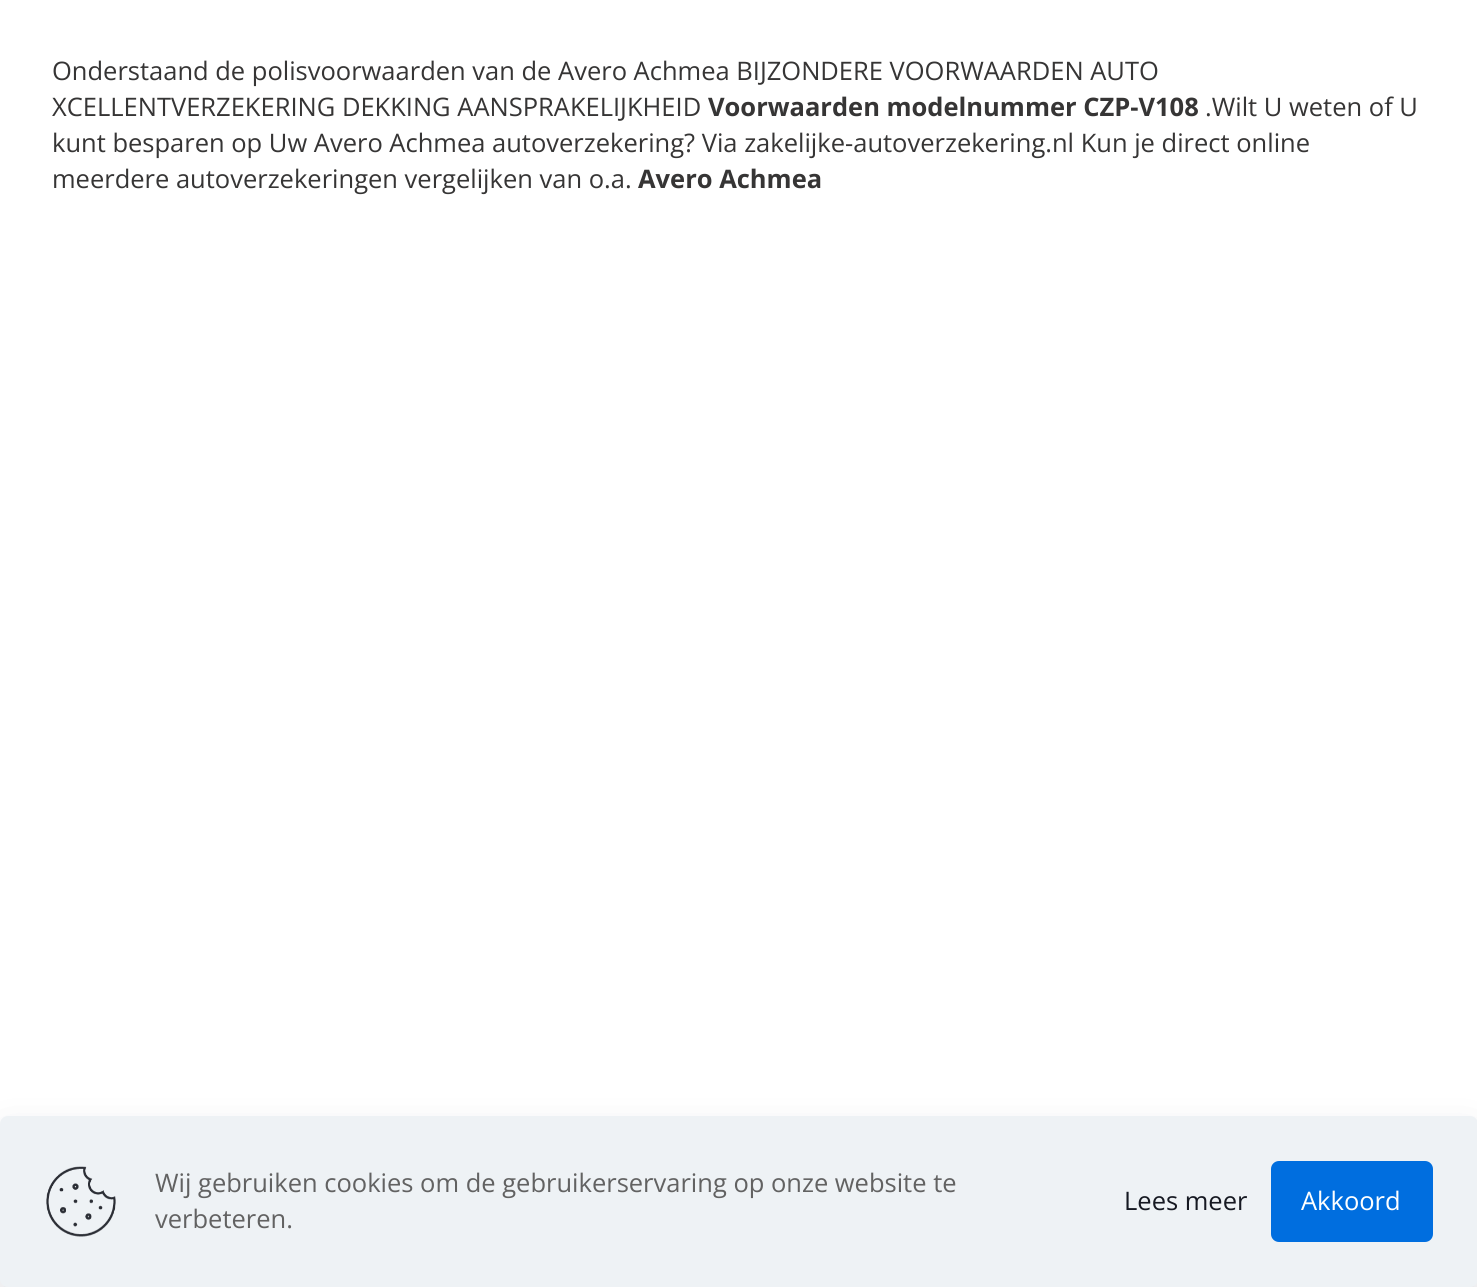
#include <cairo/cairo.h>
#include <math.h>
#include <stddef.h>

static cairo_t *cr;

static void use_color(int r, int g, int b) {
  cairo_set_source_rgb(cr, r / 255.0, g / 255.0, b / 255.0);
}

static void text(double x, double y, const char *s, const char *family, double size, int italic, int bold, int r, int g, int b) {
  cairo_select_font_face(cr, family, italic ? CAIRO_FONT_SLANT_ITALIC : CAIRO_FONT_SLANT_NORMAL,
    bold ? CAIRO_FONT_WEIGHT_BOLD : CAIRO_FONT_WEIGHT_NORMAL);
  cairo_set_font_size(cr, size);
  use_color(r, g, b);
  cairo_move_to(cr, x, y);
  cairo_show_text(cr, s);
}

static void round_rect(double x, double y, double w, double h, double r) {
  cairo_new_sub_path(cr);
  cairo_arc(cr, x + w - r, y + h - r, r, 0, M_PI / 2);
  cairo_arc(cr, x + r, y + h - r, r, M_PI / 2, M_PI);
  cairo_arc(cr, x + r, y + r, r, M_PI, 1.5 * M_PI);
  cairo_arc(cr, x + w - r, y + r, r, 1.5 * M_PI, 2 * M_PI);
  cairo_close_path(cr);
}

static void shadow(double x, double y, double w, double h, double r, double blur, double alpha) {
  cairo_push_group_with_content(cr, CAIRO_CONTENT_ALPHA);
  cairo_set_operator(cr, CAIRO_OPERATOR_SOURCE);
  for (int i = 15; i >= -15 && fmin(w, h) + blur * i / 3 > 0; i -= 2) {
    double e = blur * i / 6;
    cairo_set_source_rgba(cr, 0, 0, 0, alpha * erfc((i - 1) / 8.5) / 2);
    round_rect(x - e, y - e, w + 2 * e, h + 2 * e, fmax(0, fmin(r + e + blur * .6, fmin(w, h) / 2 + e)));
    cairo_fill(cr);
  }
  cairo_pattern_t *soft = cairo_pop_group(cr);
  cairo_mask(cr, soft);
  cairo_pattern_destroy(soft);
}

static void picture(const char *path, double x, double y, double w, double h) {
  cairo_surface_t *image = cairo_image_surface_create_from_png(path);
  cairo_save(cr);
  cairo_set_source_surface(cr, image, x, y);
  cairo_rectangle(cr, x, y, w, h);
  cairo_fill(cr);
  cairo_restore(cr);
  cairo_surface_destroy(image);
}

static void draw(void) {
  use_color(255, 255, 255);
  cairo_paint(cr);
  use_color(1, 7, 39);
  shadow(0, 1139, 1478, 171, 8, 22.5, 0.13);
  use_color(238, 242, 245);
  round_rect(0, 1116, 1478, 171, 8);
  cairo_fill(cr);
  picture("img_01.png", 46, 1166, 70, 71);
  use_color(0, 110, 223);
  round_rect(1271, 1161, 162, 81, 8);
  cairo_fill(cr);
  text(52, 80, "Onderstaand de polisvoorwaarden van de Avero Achmea BIJZONDERE VOORWAARDEN AUTO", "Open Sans", 25.5, 0, 0, 54, 53, 53);
  text(52, 116, "XCELLENTVERZEKERING DEKKING AANSPRAKELIJKHEID", "Open Sans", 25.5, 0, 0, 54, 53, 53);
  text(708, 116, "Voorwaarden modelnummer CZP-V108", "Open Sans", 25.5, 0, 1, 54, 53, 53);
  text(1205, 116, ".Wilt U weten of U", "Open Sans", 25.5, 0, 0, 54, 53, 53);
  text(52, 152, "kunt besparen op Uw Avero Achmea autoverzekering? Via zakelijke-autoverzekering.nl Kun je direct online", "Open Sans", 25.5, 0, 0, 54, 53, 53);
  text(52, 188, "meerdere autoverzekeringen vergelijken van o.a.", "Open Sans", 25.5, 0, 0, 54, 53, 53);
  text(638, 188, "Avero Achmea", "Open Sans", 25.5, 0, 1, 54, 53, 53);
  text(155, 1192, "Wij gebruiken cookies om de gebruikerservaring op onze website te", "Open Sans", 25.5, 0, 0, 98, 98, 98);
  text(155, 1228, "verbeteren.", "Open Sans", 25.5, 0, 0, 98, 98, 98);
  text(1124, 1210, "Lees meer", "Open Sans", 25.5, 0, 0, 22, 25, 34);
  text(1301, 1210, "Akkoord", "Open Sans", 25.5, 0, 0, 255, 255, 255);
}

int main(void) {
  cairo_surface_t *surface = cairo_image_surface_create(CAIRO_FORMAT_RGB24, 1477, 1287);
  cr = cairo_create(surface);
  cairo_font_options_t *options = cairo_font_options_create();
  cairo_font_options_set_hint_metrics(options, CAIRO_HINT_METRICS_OFF);
  cairo_font_options_set_hint_style(options, CAIRO_HINT_STYLE_NONE);
  cairo_set_font_options(cr, options);
  cairo_set_miter_limit(cr, 4);
  draw();
  cairo_surface_write_to_png(surface, "out.png");
  cairo_font_options_destroy(options);
  cairo_destroy(cr);
  cairo_surface_destroy(surface);
  return 0;
}
